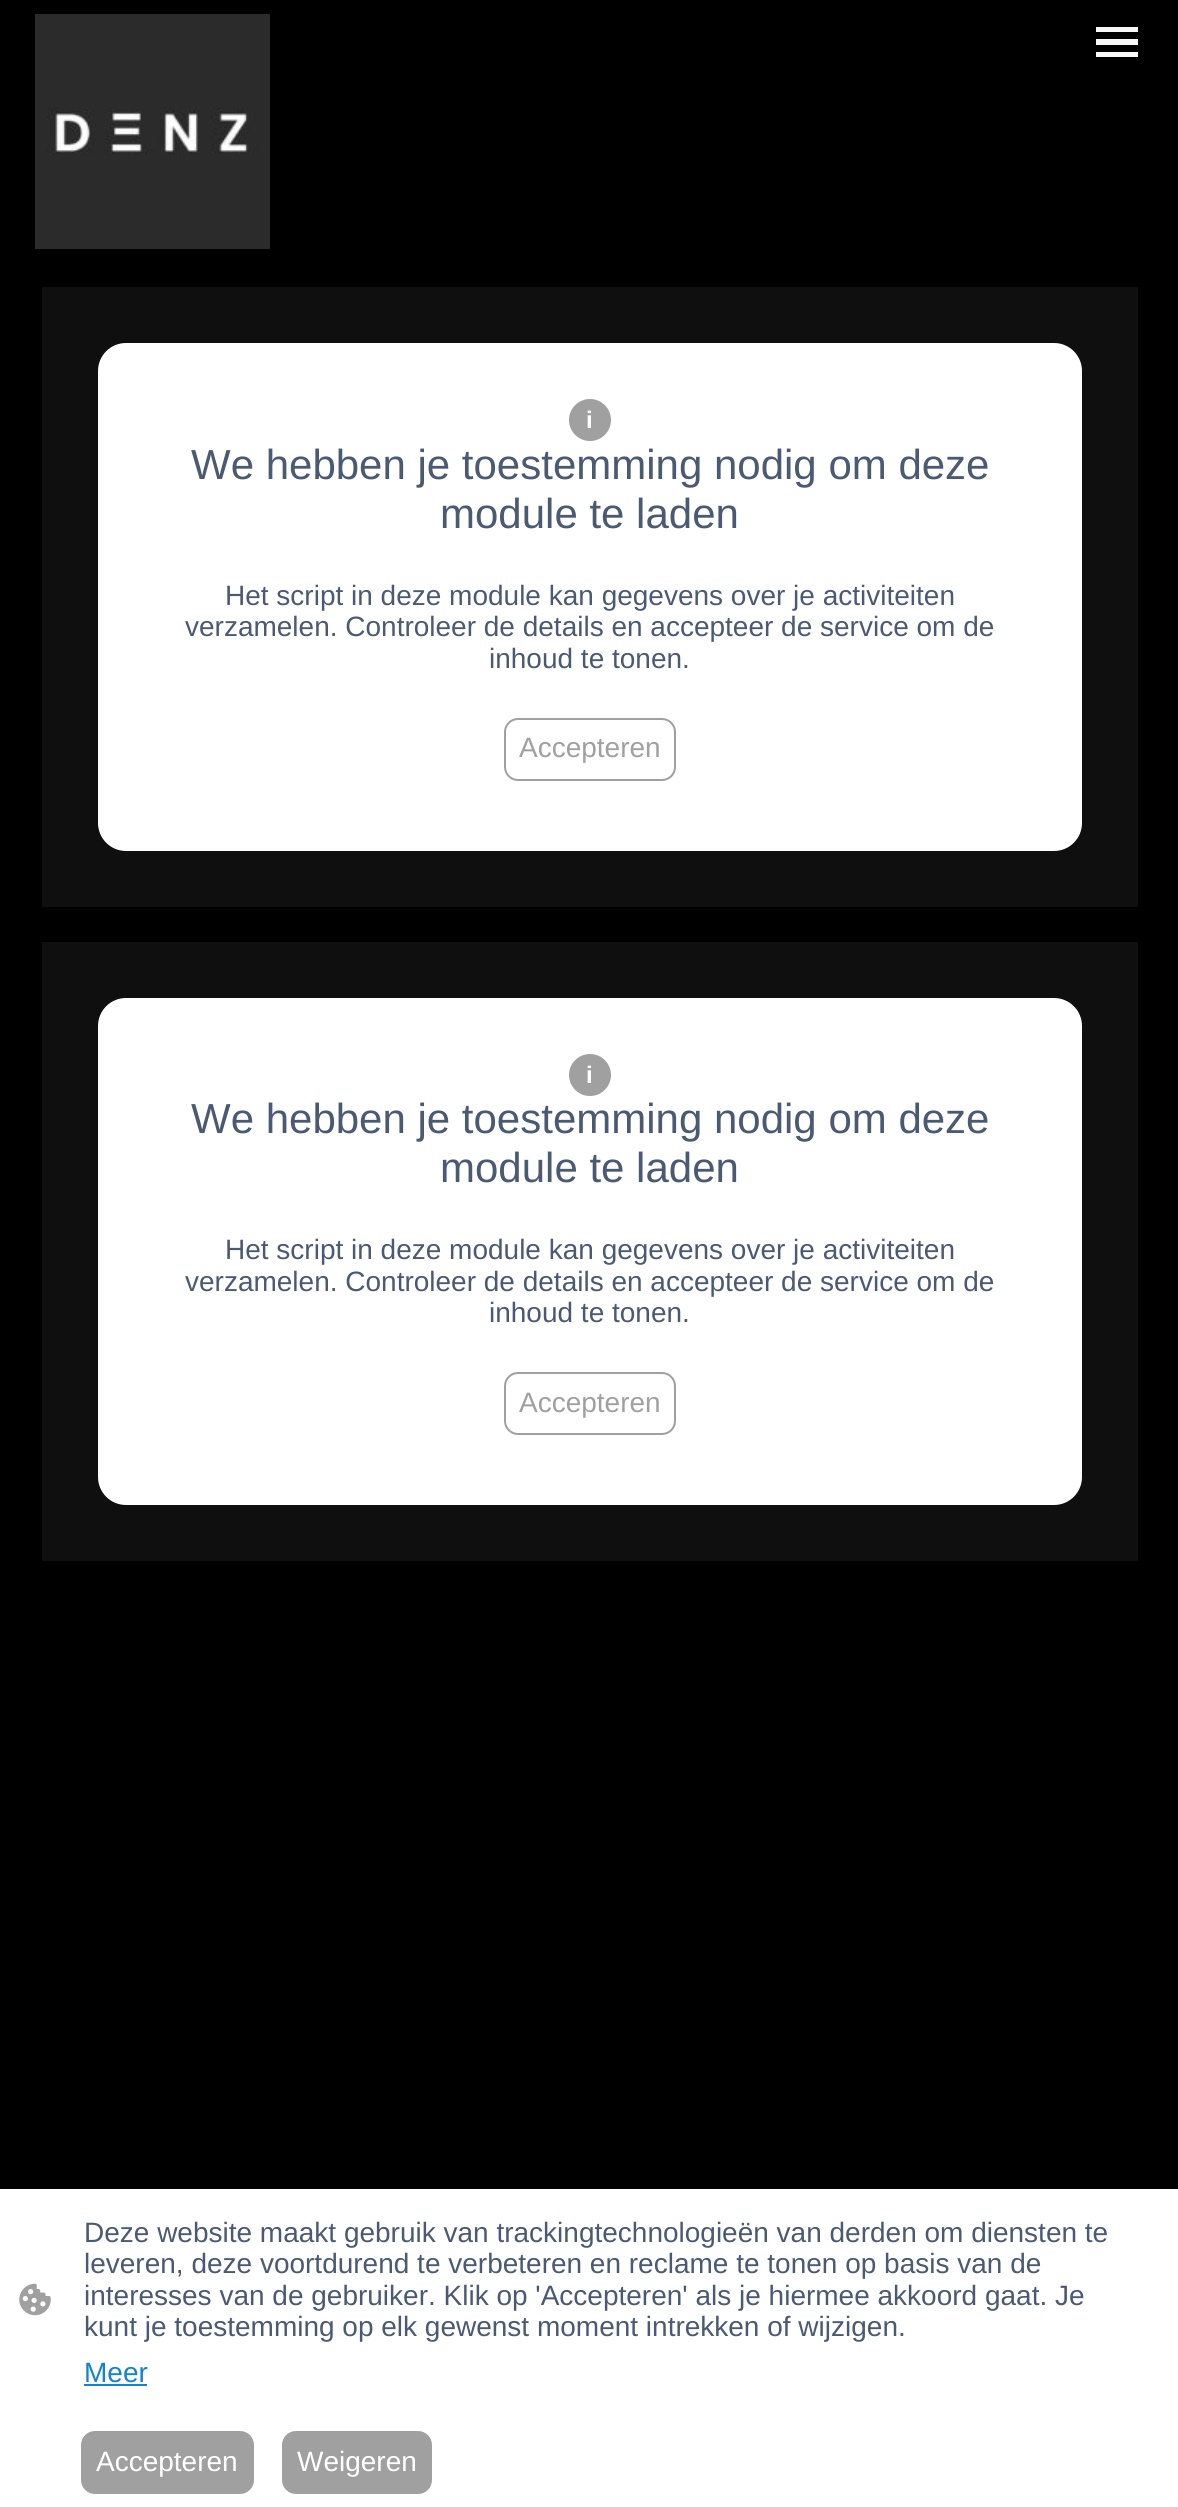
#include <cairo/cairo.h>
#include <math.h>
#include <stddef.h>

static cairo_t *cr;

static void use_color(int r, int g, int b) {
  cairo_set_source_rgb(cr, r / 255.0, g / 255.0, b / 255.0);
}

static void text(double x, double y, const char *s, const char *family, double size, int italic, int bold, int r, int g, int b) {
  cairo_select_font_face(cr, family, italic ? CAIRO_FONT_SLANT_ITALIC : CAIRO_FONT_SLANT_NORMAL,
    bold ? CAIRO_FONT_WEIGHT_BOLD : CAIRO_FONT_WEIGHT_NORMAL);
  cairo_set_font_size(cr, size);
  use_color(r, g, b);
  cairo_move_to(cr, x, y);
  cairo_show_text(cr, s);
}

static void box(double x, double y, double w, double h, int r, int g, int b) {
  use_color(r, g, b);
  cairo_rectangle(cr, x, y, w, h);
  cairo_fill(cr);
}

static void round_rect(double x, double y, double w, double h, double r) {
  cairo_new_sub_path(cr);
  cairo_arc(cr, x + w - r, y + h - r, r, 0, M_PI / 2);
  cairo_arc(cr, x + r, y + h - r, r, M_PI / 2, M_PI);
  cairo_arc(cr, x + r, y + r, r, M_PI, 1.5 * M_PI);
  cairo_arc(cr, x + w - r, y + r, r, 1.5 * M_PI, 2 * M_PI);
  cairo_close_path(cr);
}

static void picture(const char *path, double x, double y, double w, double h) {
  cairo_surface_t *image = cairo_image_surface_create_from_png(path);
  cairo_save(cr);
  cairo_set_source_surface(cr, image, x, y);
  cairo_rectangle(cr, x, y, w, h);
  cairo_fill(cr);
  cairo_restore(cr);
  cairo_surface_destroy(image);
}

static void draw(void) {
  use_color(0, 0, 0);
  cairo_paint(cr);
  picture("img_01.png", 35, 14, 235, 235);
  box(1096, 27, 42, 5, 248, 248, 248);
  box(1096, 39, 42, 6, 248, 248, 248);
  box(1096, 52, 42, 5, 248, 248, 248);
  box(42, 287, 1096, 620, 15, 15, 15);
  use_color(255, 255, 255);
  round_rect(98, 343, 984, 508, 28);
  cairo_fill(cr);
  use_color(160, 160, 160);
  cairo_arc(cr, 590, 420, 21, 0, 2 * M_PI);
  cairo_fill(cr);
  round_rect(505, 719, 170, 61, 13);
  cairo_stroke(cr);
  box(42, 942, 1096, 619, 15, 15, 15);
  use_color(255, 255, 255);
  round_rect(98, 998, 984, 507, 28);
  cairo_fill(cr);
  use_color(160, 160, 160);
  cairo_arc(cr, 590, 1075, 21, 0, 2 * M_PI);
  cairo_fill(cr);
  round_rect(505, 1373, 170, 61, 13);
  cairo_stroke(cr);
  box(0, 2189, 1178, 318, 255, 255, 255);
  picture("img_02.png", 19, 2283, 32, 33);
  box(84, 2384, 63, 2, 17, 131, 209);
  use_color(160, 160, 160);
  round_rect(82, 2432, 171, 61, 13);
  cairo_fill_preserve(cr);
  cairo_stroke(cr);
  round_rect(283, 2432, 148, 61, 13);
  cairo_fill_preserve(cr);
  cairo_stroke(cr);
  text(586, 428, "i", "Liberation Sans", 24, 0, 1, 255, 255, 255);
  text(191, 479, "We hebben je toestemming nodig om deze", "Liberation Sans", 42, 0, 0, 74, 90, 115);
  text(440, 528, "module te laden", "Liberation Sans", 42, 0, 0, 74, 90, 115);
  text(225, 605, "Het script in deze module kan gegevens over je activiteiten", "Liberation Sans", 28, 0, 0, 74, 90, 115);
  text(185, 636, "verzamelen. Controleer de details en accepteer de service om de", "Liberation Sans", 28, 0, 0, 74, 90, 115);
  text(489, 668, "inhoud te tonen.", "Liberation Sans", 28, 0, 0, 74, 90, 115);
  text(519, 757, "Accepteren", "Liberation Sans", 28, 0, 0, 160, 160, 160);
  text(586, 1083, "i", "Liberation Sans", 24, 0, 1, 255, 255, 255);
  text(191, 1133, "We hebben je toestemming nodig om deze", "Liberation Sans", 42, 0, 0, 74, 90, 115);
  text(440, 1182, "module te laden", "Liberation Sans", 42, 0, 0, 74, 90, 115);
  text(225, 1259, "Het script in deze module kan gegevens over je activiteiten", "Liberation Sans", 28, 0, 0, 74, 90, 115);
  text(185, 1291, "verzamelen. Controleer de details en accepteer de service om de", "Liberation Sans", 28, 0, 0, 74, 90, 115);
  text(489, 1322, "inhoud te tonen.", "Liberation Sans", 28, 0, 0, 74, 90, 115);
  text(519, 1412, "Accepteren", "Liberation Sans", 28, 0, 0, 160, 160, 160);
  text(84, 2242, "Deze website maakt gebruik van trackingtechnologieën van derden om diensten te", "Liberation Sans", 28, 0, 0, 74, 90, 115);
  text(84, 2273, "leveren, deze voortdurend te verbeteren en reclame te tonen op basis van de", "Liberation Sans", 28, 0, 0, 74, 90, 115);
  text(84, 2305, "interesses van de gebruiker. Klik op 'Accepteren' als je hiermee akkoord gaat. Je", "Liberation Sans", 28, 0, 0, 74, 90, 115);
  text(84, 2336, "kunt je toestemming op elk gewenst moment intrekken of wijzigen.", "Liberation Sans", 28, 0, 0, 74, 90, 115);
  text(84, 2382, "Meer", "Liberation Sans", 28, 0, 0, 17, 131, 209);
  text(96, 2471, "Accepteren", "Liberation Sans", 28, 0, 0, 255, 255, 255);
  text(297, 2471, "Weigeren", "Liberation Sans", 28, 0, 0, 255, 255, 255);
}

int main(void) {
  cairo_surface_t *surface = cairo_image_surface_create(CAIRO_FORMAT_RGB24, 1178, 2507);
  cr = cairo_create(surface);
  cairo_font_options_t *options = cairo_font_options_create();
  cairo_font_options_set_hint_metrics(options, CAIRO_HINT_METRICS_OFF);
  cairo_font_options_set_hint_style(options, CAIRO_HINT_STYLE_NONE);
  cairo_set_font_options(cr, options);
  cairo_set_miter_limit(cr, 4);
  draw();
  cairo_surface_write_to_png(surface, "out.png");
  cairo_font_options_destroy(options);
  cairo_destroy(cr);
  cairo_surface_destroy(surface);
  return 0;
}
